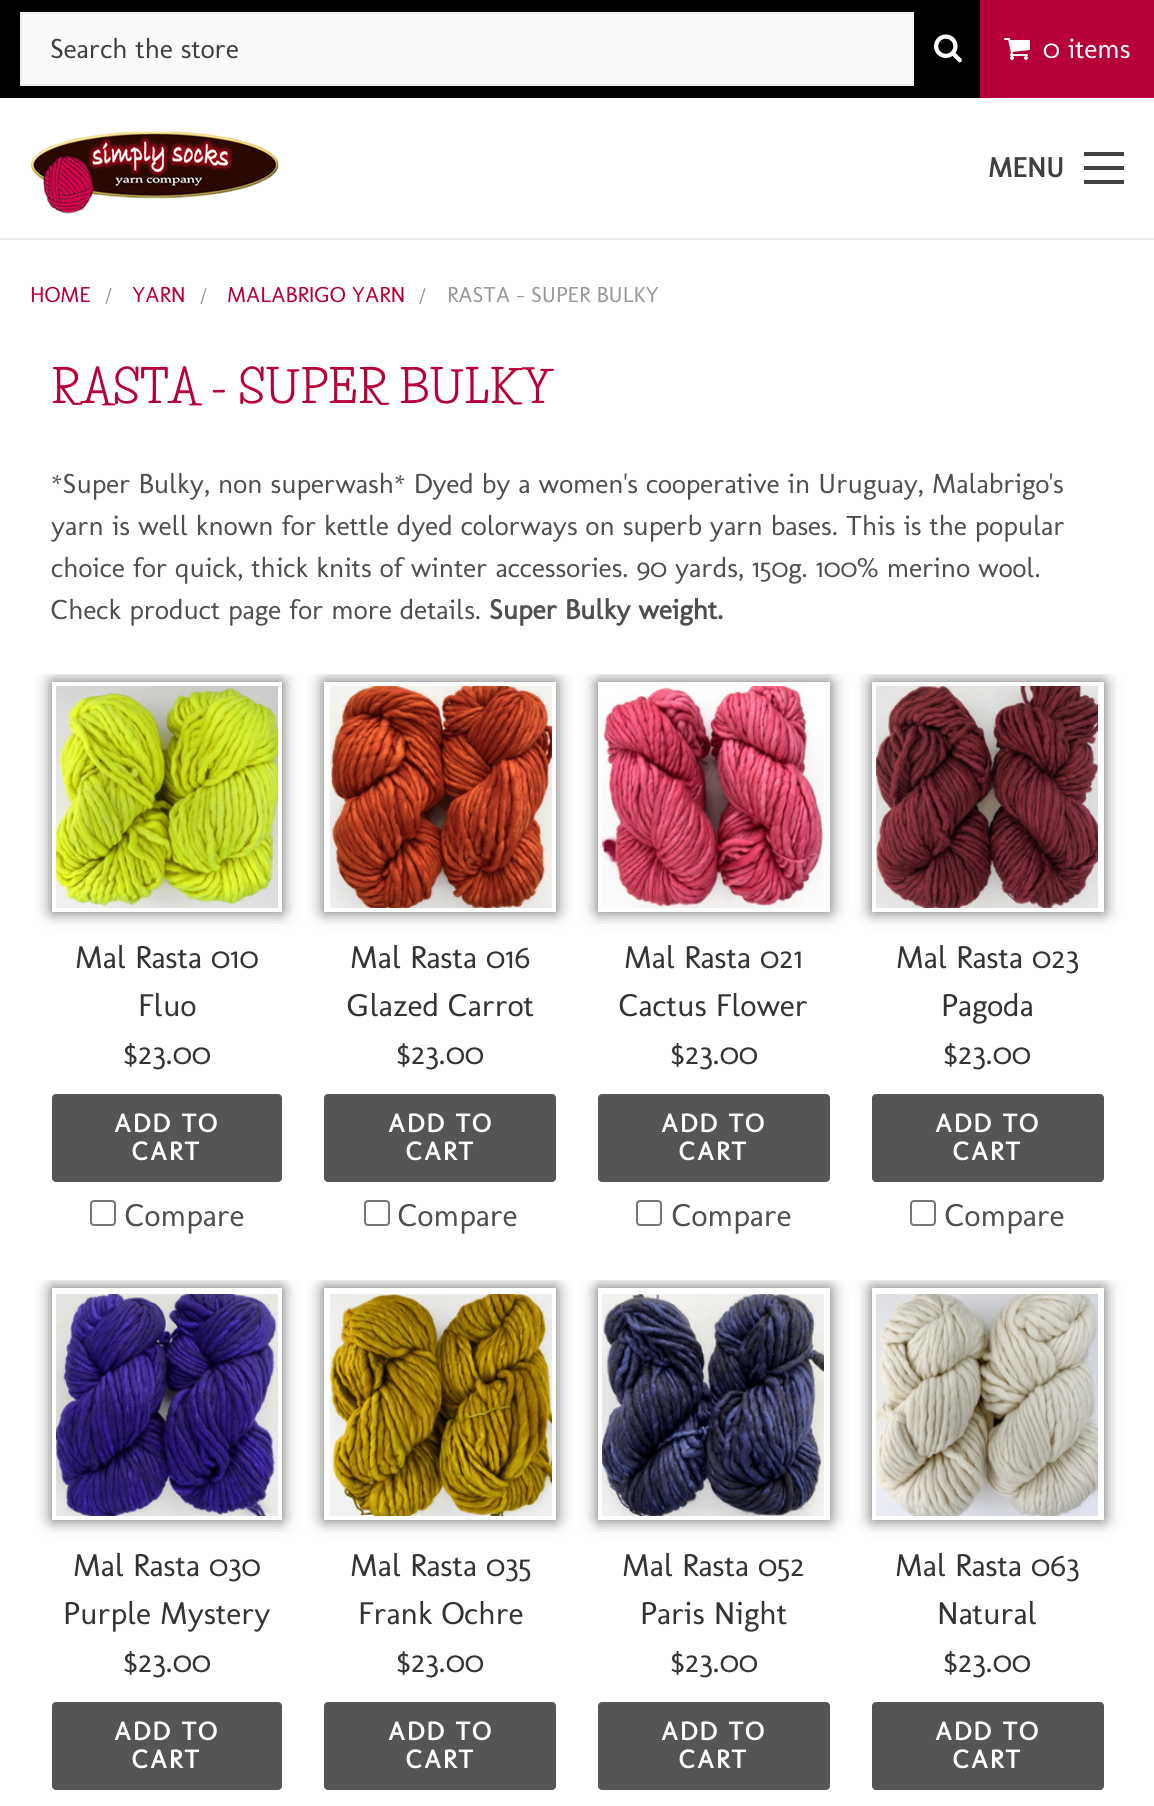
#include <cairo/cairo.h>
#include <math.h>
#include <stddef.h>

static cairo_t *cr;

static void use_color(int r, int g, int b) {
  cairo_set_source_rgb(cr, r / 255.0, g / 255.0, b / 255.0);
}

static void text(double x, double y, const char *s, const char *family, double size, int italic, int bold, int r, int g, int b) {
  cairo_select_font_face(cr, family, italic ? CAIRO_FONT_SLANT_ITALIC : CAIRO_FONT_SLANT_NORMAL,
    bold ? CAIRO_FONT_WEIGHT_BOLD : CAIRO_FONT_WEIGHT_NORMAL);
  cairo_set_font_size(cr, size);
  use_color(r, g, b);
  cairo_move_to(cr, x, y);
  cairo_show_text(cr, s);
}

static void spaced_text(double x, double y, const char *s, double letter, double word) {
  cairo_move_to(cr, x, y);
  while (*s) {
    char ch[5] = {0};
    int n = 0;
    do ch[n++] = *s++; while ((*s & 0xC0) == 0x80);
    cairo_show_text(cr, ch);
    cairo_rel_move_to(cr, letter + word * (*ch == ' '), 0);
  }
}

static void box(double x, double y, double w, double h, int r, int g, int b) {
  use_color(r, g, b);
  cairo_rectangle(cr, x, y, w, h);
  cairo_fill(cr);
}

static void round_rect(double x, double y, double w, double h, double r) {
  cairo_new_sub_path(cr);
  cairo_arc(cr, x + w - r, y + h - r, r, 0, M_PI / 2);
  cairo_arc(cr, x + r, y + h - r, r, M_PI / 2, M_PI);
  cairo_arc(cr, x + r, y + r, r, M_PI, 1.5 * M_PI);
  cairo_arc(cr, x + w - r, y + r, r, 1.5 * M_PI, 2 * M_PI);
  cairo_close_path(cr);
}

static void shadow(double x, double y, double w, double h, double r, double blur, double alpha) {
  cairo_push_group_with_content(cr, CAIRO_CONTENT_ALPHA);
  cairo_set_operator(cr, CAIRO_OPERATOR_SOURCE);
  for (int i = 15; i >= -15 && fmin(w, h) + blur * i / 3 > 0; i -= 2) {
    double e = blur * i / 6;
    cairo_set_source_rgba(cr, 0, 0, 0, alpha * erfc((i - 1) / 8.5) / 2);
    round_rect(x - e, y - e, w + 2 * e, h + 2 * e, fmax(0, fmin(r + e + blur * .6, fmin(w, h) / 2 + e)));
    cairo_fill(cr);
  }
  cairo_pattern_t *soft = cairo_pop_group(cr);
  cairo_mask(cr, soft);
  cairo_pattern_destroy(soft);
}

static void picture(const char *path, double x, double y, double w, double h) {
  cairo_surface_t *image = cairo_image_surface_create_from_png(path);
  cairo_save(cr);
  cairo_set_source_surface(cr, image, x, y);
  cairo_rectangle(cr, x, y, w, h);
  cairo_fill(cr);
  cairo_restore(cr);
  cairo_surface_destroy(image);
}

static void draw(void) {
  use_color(255, 255, 255);
  cairo_paint(cr);
  box(0, 238, 1154, 2, 232, 232, 232);
  box(0, 0, 980, 98, 0, 0, 0);
  box(22, 14, 892, 70, 250, 250, 250);
  cairo_rectangle(cr, 21, 13, 938, 72);
  use_color(237, 237, 237);
  cairo_stroke(cr);
  box(914, 12, 46, 74, 0, 0, 0);
  picture("img_01.png", 934, 34, 28, 29);
  picture("img_02.png", 31, 131, 248, 83);
  box(980, 0, 174, 98, 183, 0, 55);
  picture("img_03.png", 1004, 38, 26, 22);
  box(1084, 166, 40, 4, 66, 66, 66);
  box(1084, 152, 40, 4, 66, 66, 66);
  box(1084, 180, 40, 4, 66, 66, 66);
  cairo_save(cr);
  cairo_rectangle(cr, 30, 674, 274, 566);
  cairo_clip(cr);
  cairo_set_fill_rule(cr, CAIRO_FILL_RULE_EVEN_ODD);
  cairo_new_path(cr);
  cairo_move_to(cr, 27, 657);
  cairo_line_to(cr, 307, 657);
  cairo_line_to(cr, 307, 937);
  cairo_line_to(cr, 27, 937);
  cairo_close_path(cr);
  cairo_move_to(cr, 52, 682);
  cairo_line_to(cr, 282, 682);
  cairo_line_to(cr, 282, 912);
  cairo_line_to(cr, 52, 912);
  cairo_close_path(cr);
  cairo_clip(cr);
  use_color(50, 50, 50);
  shadow(52, 682, 230, 230, 0, 8, 0.75);
  cairo_restore(cr);
  picture("img_04.png", 56, 686, 222, 222);
  use_color(85, 85, 85);
  round_rect(52, 1094, 230, 88, 4);
  cairo_fill(cr);
  round_rect(91, 1201, 24, 24, 3);
  use_color(118, 118, 118);
  cairo_stroke(cr);
  cairo_save(cr);
  cairo_rectangle(cr, 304, 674, 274, 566);
  cairo_clip(cr);
  cairo_set_fill_rule(cr, CAIRO_FILL_RULE_EVEN_ODD);
  cairo_new_path(cr);
  cairo_move_to(cr, 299, 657);
  cairo_line_to(cr, 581, 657);
  cairo_line_to(cr, 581, 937);
  cairo_line_to(cr, 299, 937);
  cairo_close_path(cr);
  cairo_move_to(cr, 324, 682);
  cairo_line_to(cr, 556, 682);
  cairo_line_to(cr, 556, 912);
  cairo_line_to(cr, 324, 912);
  cairo_close_path(cr);
  cairo_clip(cr);
  use_color(50, 50, 50);
  shadow(324, 682, 232, 230, 0, 8, 0.75);
  cairo_restore(cr);
  picture("img_05.png", 330, 686, 222, 222);
  use_color(85, 85, 85);
  round_rect(324, 1094, 232, 88, 4);
  cairo_fill(cr);
  round_rect(365, 1201, 24, 24, 3);
  use_color(118, 118, 118);
  cairo_stroke(cr);
  cairo_save(cr);
  cairo_rectangle(cr, 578, 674, 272, 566);
  cairo_clip(cr);
  cairo_set_fill_rule(cr, CAIRO_FILL_RULE_EVEN_ODD);
  cairo_new_path(cr);
  cairo_move_to(cr, 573, 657);
  cairo_line_to(cr, 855, 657);
  cairo_line_to(cr, 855, 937);
  cairo_line_to(cr, 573, 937);
  cairo_close_path(cr);
  cairo_move_to(cr, 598, 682);
  cairo_line_to(cr, 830, 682);
  cairo_line_to(cr, 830, 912);
  cairo_line_to(cr, 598, 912);
  cairo_close_path(cr);
  cairo_clip(cr);
  use_color(50, 50, 50);
  shadow(598, 682, 232, 230, 0, 8, 0.75);
  cairo_restore(cr);
  picture("img_06.png", 602, 686, 222, 222);
  use_color(85, 85, 85);
  round_rect(598, 1094, 232, 88, 4);
  cairo_fill(cr);
  round_rect(637, 1201, 24, 24, 3);
  use_color(118, 118, 118);
  cairo_stroke(cr);
  cairo_save(cr);
  cairo_rectangle(cr, 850, 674, 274, 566);
  cairo_clip(cr);
  cairo_set_fill_rule(cr, CAIRO_FILL_RULE_EVEN_ODD);
  cairo_new_path(cr);
  cairo_move_to(cr, 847, 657);
  cairo_line_to(cr, 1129, 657);
  cairo_line_to(cr, 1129, 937);
  cairo_line_to(cr, 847, 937);
  cairo_close_path(cr);
  cairo_move_to(cr, 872, 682);
  cairo_line_to(cr, 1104, 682);
  cairo_line_to(cr, 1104, 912);
  cairo_line_to(cr, 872, 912);
  cairo_close_path(cr);
  cairo_clip(cr);
  use_color(50, 50, 50);
  shadow(872, 682, 232, 230, 0, 8, 0.75);
  cairo_restore(cr);
  picture("img_07.png", 876, 686, 222, 222);
  use_color(85, 85, 85);
  round_rect(872, 1094, 232, 88, 4);
  cairo_fill(cr);
  round_rect(911, 1201, 24, 24, 3);
  use_color(118, 118, 118);
  cairo_stroke(cr);
  cairo_save(cr);
  cairo_rectangle(cr, 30, 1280, 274, 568);
  cairo_clip(cr);
  cairo_set_fill_rule(cr, CAIRO_FILL_RULE_EVEN_ODD);
  cairo_new_path(cr);
  cairo_move_to(cr, 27, 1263);
  cairo_line_to(cr, 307, 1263);
  cairo_line_to(cr, 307, 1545);
  cairo_line_to(cr, 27, 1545);
  cairo_close_path(cr);
  cairo_move_to(cr, 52, 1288);
  cairo_line_to(cr, 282, 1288);
  cairo_line_to(cr, 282, 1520);
  cairo_line_to(cr, 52, 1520);
  cairo_close_path(cr);
  cairo_clip(cr);
  use_color(50, 50, 50);
  shadow(52, 1288, 230, 232, 0, 8, 0.75);
  cairo_restore(cr);
  picture("img_08.png", 56, 1294, 222, 222);
  use_color(85, 85, 85);
  round_rect(52, 1702, 230, 88, 4);
  cairo_fill(cr);
  cairo_save(cr);
  cairo_rectangle(cr, 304, 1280, 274, 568);
  cairo_clip(cr);
  cairo_set_fill_rule(cr, CAIRO_FILL_RULE_EVEN_ODD);
  cairo_new_path(cr);
  cairo_move_to(cr, 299, 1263);
  cairo_line_to(cr, 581, 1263);
  cairo_line_to(cr, 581, 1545);
  cairo_line_to(cr, 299, 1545);
  cairo_close_path(cr);
  cairo_move_to(cr, 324, 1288);
  cairo_line_to(cr, 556, 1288);
  cairo_line_to(cr, 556, 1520);
  cairo_line_to(cr, 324, 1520);
  cairo_close_path(cr);
  cairo_clip(cr);
  use_color(50, 50, 50);
  shadow(324, 1288, 232, 232, 0, 8, 0.75);
  cairo_restore(cr);
  picture("img_09.png", 330, 1294, 222, 222);
  round_rect(324, 1702, 232, 88, 4);
  cairo_fill(cr);
  cairo_save(cr);
  cairo_rectangle(cr, 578, 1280, 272, 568);
  cairo_clip(cr);
  cairo_set_fill_rule(cr, CAIRO_FILL_RULE_EVEN_ODD);
  cairo_new_path(cr);
  cairo_move_to(cr, 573, 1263);
  cairo_line_to(cr, 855, 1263);
  cairo_line_to(cr, 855, 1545);
  cairo_line_to(cr, 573, 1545);
  cairo_close_path(cr);
  cairo_move_to(cr, 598, 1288);
  cairo_line_to(cr, 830, 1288);
  cairo_line_to(cr, 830, 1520);
  cairo_line_to(cr, 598, 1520);
  cairo_close_path(cr);
  cairo_clip(cr);
  use_color(50, 50, 50);
  shadow(598, 1288, 232, 232, 0, 8, 0.75);
  cairo_restore(cr);
  picture("img_10.png", 602, 1294, 222, 222);
  round_rect(598, 1702, 232, 88, 4);
  cairo_fill(cr);
  cairo_save(cr);
  cairo_rectangle(cr, 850, 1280, 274, 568);
  cairo_clip(cr);
  cairo_set_fill_rule(cr, CAIRO_FILL_RULE_EVEN_ODD);
  cairo_new_path(cr);
  cairo_move_to(cr, 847, 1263);
  cairo_line_to(cr, 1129, 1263);
  cairo_line_to(cr, 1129, 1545);
  cairo_line_to(cr, 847, 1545);
  cairo_close_path(cr);
  cairo_move_to(cr, 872, 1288);
  cairo_line_to(cr, 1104, 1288);
  cairo_line_to(cr, 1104, 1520);
  cairo_line_to(cr, 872, 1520);
  cairo_close_path(cr);
  cairo_clip(cr);
  use_color(50, 50, 50);
  shadow(872, 1288, 232, 232, 0, 8, 0.75);
  cairo_restore(cr);
  picture("img_11.png", 876, 1294, 222, 222);
  round_rect(872, 1702, 232, 88, 4);
  cairo_fill(cr);
  text(50, 58, "Search the store", "Molengo", 28, 0, 0, 64, 64, 64);
  text(1043, 58, "0 items", "Molengo", 28, 0, 0, 255, 255, 255);
  text(988, 177, "MENU", "Molengo", 28, 0, 1, 64, 64, 64);
  text(30, 302, "HOME", "Molengo", 22, 0, 0, 183, 0, 55);
  text(105, 304, "/", "Molengo", 22, 0, 0, 152, 152, 152);
  text(132, 302, "YARN", "Molengo", 22, 0, 0, 183, 0, 55);
  text(200, 304, "/", "Molengo", 22, 0, 0, 152, 152, 152);
  text(227, 302, "MALABRIGO YARN", "Molengo", 22, 0, 0, 183, 0, 55);
  text(419, 304, "/", "Molengo", 22, 0, 0, 152, 152, 152);
  text(447, 302, "RASTA - SUPER BULKY", "Molengo", 22, 0, 0, 152, 152, 152);
  cairo_select_font_face(cr, "Life Savers", CAIRO_FONT_SLANT_NORMAL, CAIRO_FONT_WEIGHT_BOLD);
  cairo_set_font_size(cr, 44);
  use_color(183, 0, 55);
  spaced_text(51, 403, "RASTA - SUPER BULKY", 0.5, 0);
  text(51, 493, "*Super Bulky, non superwash* Dyed by a women's cooperative in Uruguay, Malabrigo's", "Molengo", 28, 0, 0, 79, 79, 79);
  text(51, 535, "yarn is well known for kettle dyed colorways on superb yarn bases. This is the popular", "Molengo", 28, 0, 0, 79, 79, 79);
  text(51, 577, "choice for quick, thick knits of winter accessories. 90 yards, 150g. 100% merino wool.", "Molengo", 28, 0, 0, 79, 79, 79);
  text(51, 619, "Check product page for more details.", "Molengo", 28, 0, 0, 79, 79, 79);
  text(489, 619, "Super Bulky weight.", "Molengo", 28, 0, 1, 79, 79, 79);
  text(75, 968, "Mal Rasta 010", "Molengo", 32, 0, 0, 51, 51, 51);
  text(138, 1016, "Fluo", "Molengo", 32, 0, 0, 51, 51, 51);
  text(123, 1064, "$23.00", "Molengo", 32, 0, 0, 51, 51, 51);
  cairo_select_font_face(cr, "Molengo", CAIRO_FONT_SLANT_NORMAL, CAIRO_FONT_WEIGHT_BOLD);
  cairo_set_font_size(cr, 26);
  use_color(255, 255, 255);
  spaced_text(114, 1132, "ADD TO", 2, 0);
  spaced_text(132, 1160, "CART", 2, 0);
  text(125, 1226, "Compare", "Molengo", 32, 0, 0, 79, 79, 79);
  text(350, 968, "Mal Rasta 016", "Molengo", 32, 0, 0, 51, 51, 51);
  text(347, 1016, "Glazed Carrot", "Molengo", 32, 0, 0, 51, 51, 51);
  text(396, 1064, "$23.00", "Molengo", 32, 0, 0, 51, 51, 51);
  cairo_select_font_face(cr, "Molengo", CAIRO_FONT_SLANT_NORMAL, CAIRO_FONT_WEIGHT_BOLD);
  cairo_set_font_size(cr, 26);
  use_color(255, 255, 255);
  spaced_text(388, 1132, "ADD TO", 2, 0);
  spaced_text(406, 1160, "CART", 2, 0);
  text(398, 1226, "Compare", "Molengo", 32, 0, 0, 79, 79, 79);
  text(624, 968, "Mal Rasta 021", "Molengo", 32, 0, 0, 51, 51, 51);
  text(619, 1016, "Cactus Flower", "Molengo", 32, 0, 0, 51, 51, 51);
  text(670, 1064, "$23.00", "Molengo", 32, 0, 0, 51, 51, 51);
  cairo_select_font_face(cr, "Molengo", CAIRO_FONT_SLANT_NORMAL, CAIRO_FONT_WEIGHT_BOLD);
  cairo_set_font_size(cr, 26);
  use_color(255, 255, 255);
  spaced_text(661, 1132, "ADD TO", 2, 0);
  spaced_text(679, 1160, "CART", 2, 0);
  text(672, 1226, "Compare", "Molengo", 32, 0, 0, 79, 79, 79);
  text(896, 968, "Mal Rasta 023", "Molengo", 32, 0, 0, 51, 51, 51);
  text(941, 1016, "Pagoda", "Molengo", 32, 0, 0, 51, 51, 51);
  text(943, 1064, "$23.00", "Molengo", 32, 0, 0, 51, 51, 51);
  cairo_select_font_face(cr, "Molengo", CAIRO_FONT_SLANT_NORMAL, CAIRO_FONT_WEIGHT_BOLD);
  cairo_set_font_size(cr, 26);
  use_color(255, 255, 255);
  spaced_text(935, 1132, "ADD TO", 2, 0);
  spaced_text(953, 1160, "CART", 2, 0);
  text(945, 1226, "Compare", "Molengo", 32, 0, 0, 79, 79, 79);
  text(73, 1576, "Mal Rasta 030", "Molengo", 32, 0, 0, 51, 51, 51);
  text(63, 1624, "Purple Mystery", "Molengo", 32, 0, 0, 51, 51, 51);
  text(123, 1672, "$23.00", "Molengo", 32, 0, 0, 51, 51, 51);
  cairo_select_font_face(cr, "Molengo", CAIRO_FONT_SLANT_NORMAL, CAIRO_FONT_WEIGHT_BOLD);
  cairo_set_font_size(cr, 26);
  use_color(255, 255, 255);
  spaced_text(114, 1740, "ADD TO", 2, 0);
  spaced_text(132, 1768, "CART", 2, 0);
  text(350, 1576, "Mal Rasta 035", "Molengo", 32, 0, 0, 51, 51, 51);
  text(358, 1624, "Frank Ochre", "Molengo", 32, 0, 0, 51, 51, 51);
  text(396, 1672, "$23.00", "Molengo", 32, 0, 0, 51, 51, 51);
  cairo_select_font_face(cr, "Molengo", CAIRO_FONT_SLANT_NORMAL, CAIRO_FONT_WEIGHT_BOLD);
  cairo_set_font_size(cr, 26);
  use_color(255, 255, 255);
  spaced_text(388, 1740, "ADD TO", 2, 0);
  spaced_text(406, 1768, "CART", 2, 0);
  text(622, 1576, "Mal Rasta 052", "Molengo", 32, 0, 0, 51, 51, 51);
  text(640, 1624, "Paris Night", "Molengo", 32, 0, 0, 51, 51, 51);
  text(670, 1672, "$23.00", "Molengo", 32, 0, 0, 51, 51, 51);
  cairo_select_font_face(cr, "Molengo", CAIRO_FONT_SLANT_NORMAL, CAIRO_FONT_WEIGHT_BOLD);
  cairo_set_font_size(cr, 26);
  use_color(255, 255, 255);
  spaced_text(661, 1740, "ADD TO", 2, 0);
  spaced_text(679, 1768, "CART", 2, 0);
  text(895, 1576, "Mal Rasta 063", "Molengo", 32, 0, 0, 51, 51, 51);
  text(937, 1624, "Natural", "Molengo", 32, 0, 0, 51, 51, 51);
  text(943, 1672, "$23.00", "Molengo", 32, 0, 0, 51, 51, 51);
  cairo_select_font_face(cr, "Molengo", CAIRO_FONT_SLANT_NORMAL, CAIRO_FONT_WEIGHT_BOLD);
  cairo_set_font_size(cr, 26);
  use_color(255, 255, 255);
  spaced_text(935, 1740, "ADD TO", 2, 0);
  spaced_text(953, 1768, "CART", 2, 0);
}

int main(void) {
  cairo_surface_t *surface = cairo_image_surface_create(CAIRO_FORMAT_RGB24, 1154, 1806);
  cr = cairo_create(surface);
  cairo_font_options_t *options = cairo_font_options_create();
  cairo_font_options_set_hint_metrics(options, CAIRO_HINT_METRICS_OFF);
  cairo_font_options_set_hint_style(options, CAIRO_HINT_STYLE_NONE);
  cairo_set_font_options(cr, options);
  cairo_set_miter_limit(cr, 4);
  draw();
  cairo_surface_write_to_png(surface, "out.png");
  cairo_font_options_destroy(options);
  cairo_destroy(cr);
  cairo_surface_destroy(surface);
  return 0;
}
